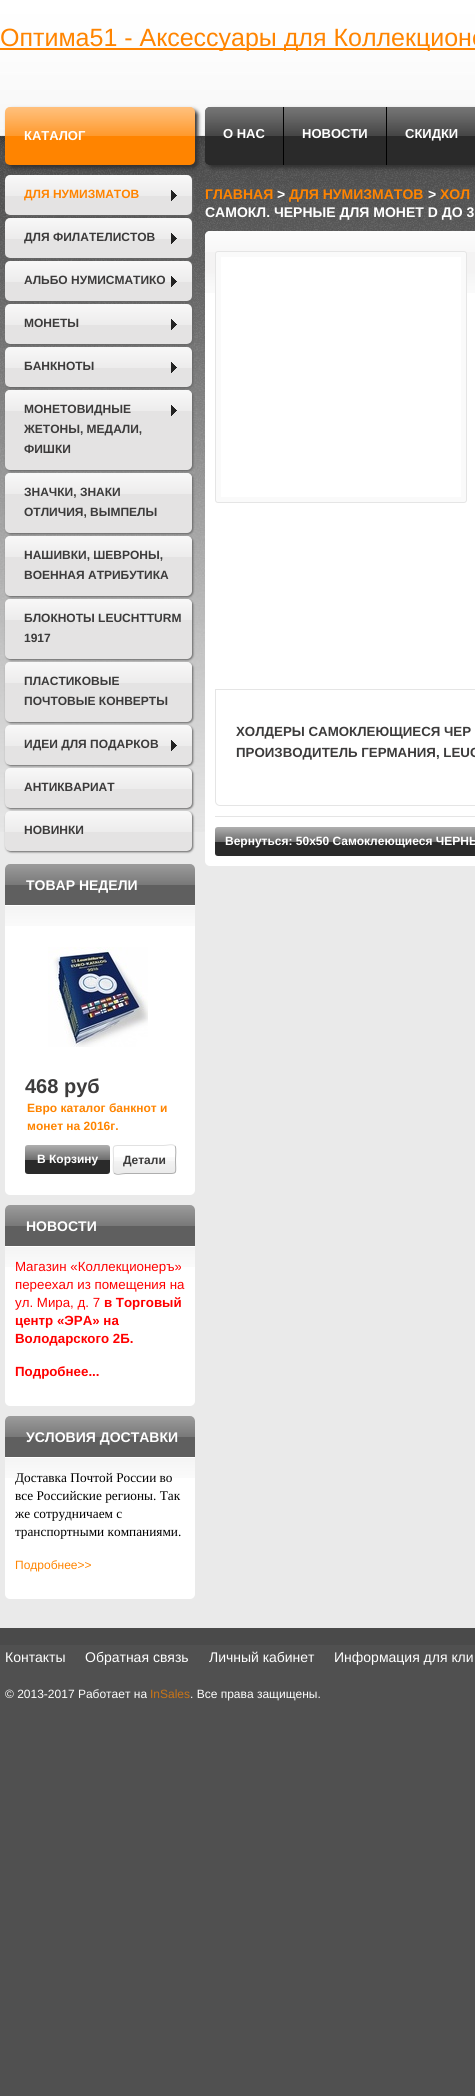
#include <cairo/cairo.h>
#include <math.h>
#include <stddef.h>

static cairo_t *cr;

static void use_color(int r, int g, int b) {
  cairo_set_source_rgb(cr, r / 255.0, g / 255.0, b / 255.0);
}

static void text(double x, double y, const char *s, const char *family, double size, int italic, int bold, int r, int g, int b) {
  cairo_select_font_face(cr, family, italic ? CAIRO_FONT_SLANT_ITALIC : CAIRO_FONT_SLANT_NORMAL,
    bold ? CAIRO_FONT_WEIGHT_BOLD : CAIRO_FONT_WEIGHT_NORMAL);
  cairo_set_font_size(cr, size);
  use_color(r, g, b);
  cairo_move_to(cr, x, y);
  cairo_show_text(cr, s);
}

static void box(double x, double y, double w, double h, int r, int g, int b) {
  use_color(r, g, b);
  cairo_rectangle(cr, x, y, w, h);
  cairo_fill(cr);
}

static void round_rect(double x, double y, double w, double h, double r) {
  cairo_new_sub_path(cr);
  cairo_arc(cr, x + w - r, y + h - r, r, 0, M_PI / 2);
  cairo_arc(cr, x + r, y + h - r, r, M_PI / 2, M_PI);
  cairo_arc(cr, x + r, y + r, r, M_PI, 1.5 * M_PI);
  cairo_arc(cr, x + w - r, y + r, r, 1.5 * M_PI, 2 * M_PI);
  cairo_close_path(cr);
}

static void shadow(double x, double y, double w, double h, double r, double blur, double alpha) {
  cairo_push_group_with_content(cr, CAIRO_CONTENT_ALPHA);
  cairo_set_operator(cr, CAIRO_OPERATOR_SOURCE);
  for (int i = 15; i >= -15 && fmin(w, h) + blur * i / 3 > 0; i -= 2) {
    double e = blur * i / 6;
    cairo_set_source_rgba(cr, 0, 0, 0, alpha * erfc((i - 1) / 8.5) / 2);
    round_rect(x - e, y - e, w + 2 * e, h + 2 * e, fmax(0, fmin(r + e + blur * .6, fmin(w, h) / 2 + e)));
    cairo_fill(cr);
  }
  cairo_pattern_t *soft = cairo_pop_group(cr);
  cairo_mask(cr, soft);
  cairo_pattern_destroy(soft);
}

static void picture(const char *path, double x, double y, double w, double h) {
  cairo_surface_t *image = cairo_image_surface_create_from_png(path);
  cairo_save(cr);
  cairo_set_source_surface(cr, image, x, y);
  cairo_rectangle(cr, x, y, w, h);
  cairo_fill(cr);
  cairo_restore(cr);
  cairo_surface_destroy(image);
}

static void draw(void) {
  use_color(80, 80, 80);
  cairo_paint(cr);
  box(0, 1628, 475, 17, 74, 74, 74);
  box(0, 832, 475, 796, 234, 234, 234);
  picture("img_01.png", 0, 0, 475, 832);
  box(0, 48, 475, 2, 255, 132, 0);
  use_color(49, 49, 49);
  shadow(8, 110, 190, 58, 5, 2, 1);
  picture("img_02.png", 5, 107, 190, 58);
  use_color(101, 101, 101);
  shadow(6, 176, 187, 40, 5, 1, 1);
  picture("img_03.png", 5, 175, 187, 40);
  picture("img_04.png", 171, 190, 6, 11);
  shadow(6, 219, 187, 40, 5, 1, 1);
  picture("img_05.png", 5, 218, 187, 40);
  picture("img_04.png", 171, 233, 6, 11);
  shadow(6, 262, 187, 40, 5, 1, 1);
  picture("img_06.png", 5, 261, 187, 40);
  picture("img_04.png", 171, 276, 6, 11);
  shadow(6, 305, 187, 40, 5, 1, 1);
  picture("img_07.png", 5, 304, 187, 40);
  picture("img_04.png", 171, 319, 6, 11);
  shadow(6, 348, 187, 40, 5, 1, 1);
  picture("img_08.png", 5, 347, 187, 40);
  picture("img_04.png", 171, 362, 6, 11);
  shadow(6, 391, 187, 80, 5, 1, 1);
  use_color(228, 227, 227);
  round_rect(5, 390, 187, 80, 5);
  cairo_fill(cr);
  picture("img_09.png", 5, 390, 187, 21);
  picture("img_04.png", 171, 405, 6, 11);
  use_color(101, 101, 101);
  shadow(6, 474, 187, 60, 5, 1, 1);
  use_color(228, 227, 227);
  round_rect(5, 473, 187, 60, 5);
  cairo_fill(cr);
  picture("img_10.png", 5, 473, 187, 21);
  use_color(101, 101, 101);
  shadow(6, 537, 187, 60, 5, 1, 1);
  use_color(228, 227, 227);
  round_rect(5, 536, 187, 60, 5);
  cairo_fill(cr);
  picture("img_11.png", 5, 536, 187, 21);
  use_color(101, 101, 101);
  shadow(6, 600, 187, 60, 5, 1, 1);
  use_color(228, 227, 227);
  round_rect(5, 599, 187, 60, 5);
  cairo_fill(cr);
  picture("img_12.png", 5, 599, 187, 21);
  use_color(101, 101, 101);
  shadow(6, 663, 187, 60, 5, 1, 1);
  use_color(228, 227, 227);
  round_rect(5, 662, 187, 60, 5);
  cairo_fill(cr);
  picture("img_13.png", 5, 662, 187, 21);
  use_color(101, 101, 101);
  shadow(6, 726, 187, 40, 5, 1, 1);
  picture("img_14.png", 5, 725, 187, 40);
  picture("img_04.png", 171, 740, 6, 11);
  shadow(6, 769, 187, 40, 5, 1, 1);
  picture("img_15.png", 5, 768, 187, 40);
  shadow(6, 812, 187, 40, 5, 1, 1);
  picture("img_16.png", 5, 811, 187, 40);
  use_color(255, 255, 255);
  round_rect(5, 864, 190, 331, 5);
  cairo_fill(cr);
  picture("img_17.png", 5, 864, 190, 62);
  picture("img_18.png", 48, 947, 100, 100);
  picture("img_19.png", 25, 1145, 85, 29);
  picture("img_20.png", 113, 1157, 63, 16);
  cairo_new_path(cr);
  cairo_move_to(cr, 175, 1146);
  cairo_curve_to(cr, 176.5, 1148, 175.5, 1157, 175.5, 1159.5);
  cairo_curve_to(cr, 175.5, 1175, 178.5, 1173.5, 163.5, 1173.5);
  cairo_line_to(cr, 125.5, 1173.5);
  cairo_curve_to(cr, 121.5, 1173.5, 117, 1175.5, 114, 1173);
  use_color(174, 174, 174);
  cairo_set_line_width(cr, 1);
  cairo_stroke(cr);
  cairo_new_path(cr);
  cairo_move_to(cr, 114, 1173);
  cairo_curve_to(cr, 112.5, 1171, 113.5, 1162, 113.5, 1159.5);
  cairo_curve_to(cr, 113.5, 1144, 110.5, 1145.5, 125.5, 1145.5);
  cairo_line_to(cr, 163.5, 1145.5);
  cairo_curve_to(cr, 167.5, 1145.5, 172, 1143.5, 175, 1146);
  use_color(225, 225, 225);
  cairo_stroke(cr);
  use_color(255, 255, 255);
  round_rect(5, 1205, 190, 201, 5);
  cairo_fill(cr);
  picture("img_17.png", 5, 1205, 190, 62);
  round_rect(5, 1416, 190, 183, 5);
  cairo_fill(cr);
  picture("img_17.png", 5, 1416, 190, 62);
  use_color(49, 49, 49);
  shadow(208, 110, 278, 58, 5, 2, 1);
  picture("img_21.png", 205, 107, 270, 58);
  box(283, 107, 1, 58, 0, 0, 0);
  picture("img_22.png", 205, 107, 5, 58);
  box(386, 107, 1, 58, 0, 0, 0);
  use_color(255, 255, 255);
  round_rect(205, 231, 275, 635, 5);
  cairo_fill(cr);
  picture("img_23.png", 205, 231, 270, 62);
  use_color(250, 250, 250);
  round_rect(215.5, 251.5, 251, 251, 2.5);
  cairo_fill_preserve(cr);
  use_color(229, 229, 229);
  cairo_stroke(cr);
  box(221, 257, 240, 240, 255, 255, 255);
  cairo_new_path(cr);
  cairo_move_to(cr, 215.5, 689.5);
  cairo_line_to(cr, 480.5, 689.5);
  cairo_line_to(cr, 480.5, 801);
  cairo_curve_to(cr, 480.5, 803.5, 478.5, 805.5, 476, 805.5);
  cairo_line_to(cr, 220, 805.5);
  cairo_curve_to(cr, 217.5, 805.5, 215.5, 803.5, 215.5, 801);
  cairo_close_path(cr);
  use_color(229, 229, 229);
  cairo_stroke(cr);
  box(215, 816, 260, 1, 229, 229, 229);
  picture("img_24.png", 215, 827, 260, 29);
  cairo_save(cr);
  cairo_rectangle(cr, 0, 23, 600, 28);
  cairo_clip(cr);
  text(0, 46, "Оптима51 - Аксессуары для Коллекционе", "Liberation Sans", 25, 0, 0, 255, 132, 0);
  cairo_restore(cr);
  text(24, 140, "КАТАЛОГ", "Liberation Sans", 13, 0, 1, 255, 255, 255);
  text(24, 198, "ДЛЯ НУМИЗМАТОВ", "Liberation Sans", 12, 0, 1, 255, 132, 0);
  text(24, 241, "ДЛЯ ФИЛАТЕЛИСТОВ", "Liberation Sans", 12, 0, 1, 60, 59, 59);
  text(24, 284, "АЛЬБО НУМИСМАТИКО", "Liberation Sans", 12, 0, 1, 60, 59, 59);
  text(24, 327, "МОНЕТЫ", "Liberation Sans", 12, 0, 1, 60, 59, 59);
  text(24, 370, "БАНКНОТЫ", "Liberation Sans", 12, 0, 1, 60, 59, 59);
  text(24, 413, "МОНЕТОВИДНЫЕ", "Liberation Sans", 12, 0, 1, 60, 59, 59);
  text(24, 433, "ЖЕТОНЫ, МЕДАЛИ,", "Liberation Sans", 12, 0, 1, 60, 59, 59);
  text(24, 453, "ФИШКИ", "Liberation Sans", 12, 0, 1, 60, 59, 59);
  text(24, 496, "ЗНАЧКИ, ЗНАКИ", "Liberation Sans", 12, 0, 1, 60, 59, 59);
  text(24, 516, "ОТЛИЧИЯ, ВЫМПЕЛЫ", "Liberation Sans", 12, 0, 1, 60, 59, 59);
  text(24, 559, "НАШИВКИ, ШЕВРОНЫ,", "Liberation Sans", 12, 0, 1, 60, 59, 59);
  text(24, 579, "ВОЕННАЯ АТРИБУТИКА", "Liberation Sans", 12, 0, 1, 60, 59, 59);
  text(24, 622, "БЛОКНОТЫ LEUCHTTURM", "Liberation Sans", 12, 0, 1, 60, 59, 59);
  text(24, 642, "1917", "Liberation Sans", 12, 0, 1, 60, 59, 59);
  text(24, 685, "ПЛАСТИКОВЫЕ", "Liberation Sans", 12, 0, 1, 60, 59, 59);
  text(24, 705, "ПОЧТОВЫЕ КОНВЕРТЫ", "Liberation Sans", 12, 0, 1, 60, 59, 59);
  text(24, 748, "ИДЕИ ДЛЯ ПОДАРКОВ", "Liberation Sans", 12, 0, 1, 60, 59, 59);
  text(24, 791, "АНТИКВАРИАТ", "Liberation Sans", 12, 0, 1, 60, 59, 59);
  text(24, 834, "НОВИНКИ", "Liberation Sans", 12, 0, 1, 60, 59, 59);
  text(26, 890, "ТОВАР НЕДЕЛИ", "Liberation Sans", 14, 0, 1, 255, 255, 255);
  text(25, 1093, "468 руб", "Liberation Sans", 20, 0, 1, 60, 59, 59);
  text(27, 1112, "Евро каталог банкнот и", "Liberation Sans", 12, 0, 1, 255, 132, 0);
  text(27, 1130, "монет на 2016г.", "Liberation Sans", 12, 0, 1, 255, 132, 0);
  text(37, 1163, "В Корзину", "Liberation Sans", 12, 0, 1, 255, 255, 255);
  text(123, 1164, "Детали", "Liberation Sans", 12, 0, 1, 60, 59, 59);
  text(26, 1231, "НОВОСТИ", "Liberation Sans", 14, 0, 1, 255, 255, 255);
  text(15, 1271, "Магазин «Коллекционеръ»", "Liberation Sans", 13.3, 0, 0, 255, 0, 0);
  text(15, 1289, "переехал из помещения на", "Liberation Sans", 13.3, 0, 0, 255, 0, 0);
  text(15, 1307, "ул. Мира, д. 7", "Liberation Sans", 13.3, 0, 0, 255, 0, 0);
  text(104, 1307, "в Торговый", "Liberation Sans", 13.3, 0, 1, 255, 0, 0);
  text(15, 1325, "центр «ЭРА» на", "Liberation Sans", 13.3, 0, 1, 255, 0, 0);
  text(15, 1343, "Володарского 2Б.", "Liberation Sans", 13.3, 0, 1, 255, 0, 0);
  text(15, 1376, "Подробнее...", "Liberation Sans", 13.3, 0, 1, 255, 0, 0);
  text(26, 1442, "УСЛОВИЯ ДОСТАВКИ", "Liberation Sans", 14, 0, 1, 255, 255, 255);
  text(15, 1482, "Доставка Почтой России во", "Liberation Serif", 13.3, 0, 0, 0, 0, 0);
  text(15, 1500, "все Российские регионы. Так", "Liberation Serif", 13.3, 0, 0, 0, 0, 0);
  text(15, 1518, "же сотрудничаем с", "Liberation Serif", 13.3, 0, 0, 0, 0, 0);
  text(15, 1536, "транспортными компаниями.", "Liberation Serif", 13.3, 0, 0, 0, 0, 0);
  text(15, 1569, "Подробнее>>", "Liberation Sans", 12, 0, 0, 255, 132, 0);
  text(223, 138, "О НАС", "Liberation Sans", 13, 0, 1, 255, 255, 255);
  text(302, 138, "НОВОСТИ", "Liberation Sans", 13, 0, 1, 255, 255, 255);
  text(405, 138, "СКИДКИ", "Liberation Sans", 13, 0, 1, 255, 255, 255);
  text(205, 199, "ГЛАВНАЯ", "Liberation Sans", 14, 0, 1, 255, 132, 0);
  text(277, 199, ">", "Liberation Sans", 14, 0, 1, 255, 255, 255);
  text(289, 199, "ДЛЯ НУМИЗМАТОВ", "Liberation Sans", 14, 0, 1, 255, 132, 0);
  text(428, 199, ">", "Liberation Sans", 14, 0, 1, 255, 255, 255);
  text(440, 199, "ХОЛ", "Liberation Sans", 14, 0, 1, 255, 132, 0);
  text(205, 217, "САМОКЛ. ЧЕРНЫЕ ДЛЯ МОНЕТ D ДО 3", "Liberation Sans", 14, 0, 1, 255, 255, 255);
  text(236, 736, "ХОЛДЕРЫ САМОКЛЕЮЩИЕСЯ ЧЕР", "Liberation Sans", 13.3, 0, 1, 60, 59, 59);
  text(236, 757, "ПРОИЗВОДИТЕЛЬ ГЕРМАНИЯ, LEUC", "Liberation Sans", 13.3, 0, 1, 60, 59, 59);
  text(225, 845, "Вернуться: 50х50 Самоклеющиеся ЧЕРНЫ", "Liberation Sans", 12, 0, 1, 255, 255, 255);
  text(5, 1662, "Контакты", "Liberation Sans", 14, 0, 0, 255, 255, 255);
  text(85, 1662, "Обратная связь", "Liberation Sans", 14, 0, 0, 255, 255, 255);
  text(209, 1662, "Личный кабинет", "Liberation Sans", 14, 0, 0, 255, 255, 255);
  text(334, 1662, "Информация для кли", "Liberation Sans", 14, 0, 0, 255, 255, 255);
  text(5, 1698, "© 2013-2017 Работает на", "Liberation Sans", 12, 0, 0, 255, 255, 255);
  text(150, 1698, "InSales", "Liberation Sans", 12, 0, 0, 201, 116, 22);
  text(190, 1698, ". Все права защищены.", "Liberation Sans", 12, 0, 0, 255, 255, 255);
}

int main(void) {
  cairo_surface_t *surface = cairo_image_surface_create(CAIRO_FORMAT_RGB24, 475, 2096);
  cr = cairo_create(surface);
  cairo_font_options_t *options = cairo_font_options_create();
  cairo_font_options_set_hint_metrics(options, CAIRO_HINT_METRICS_OFF);
  cairo_font_options_set_hint_style(options, CAIRO_HINT_STYLE_NONE);
  cairo_set_font_options(cr, options);
  cairo_set_miter_limit(cr, 4);
  draw();
  cairo_surface_write_to_png(surface, "out.png");
  cairo_font_options_destroy(options);
  cairo_destroy(cr);
  cairo_surface_destroy(surface);
  return 0;
}
